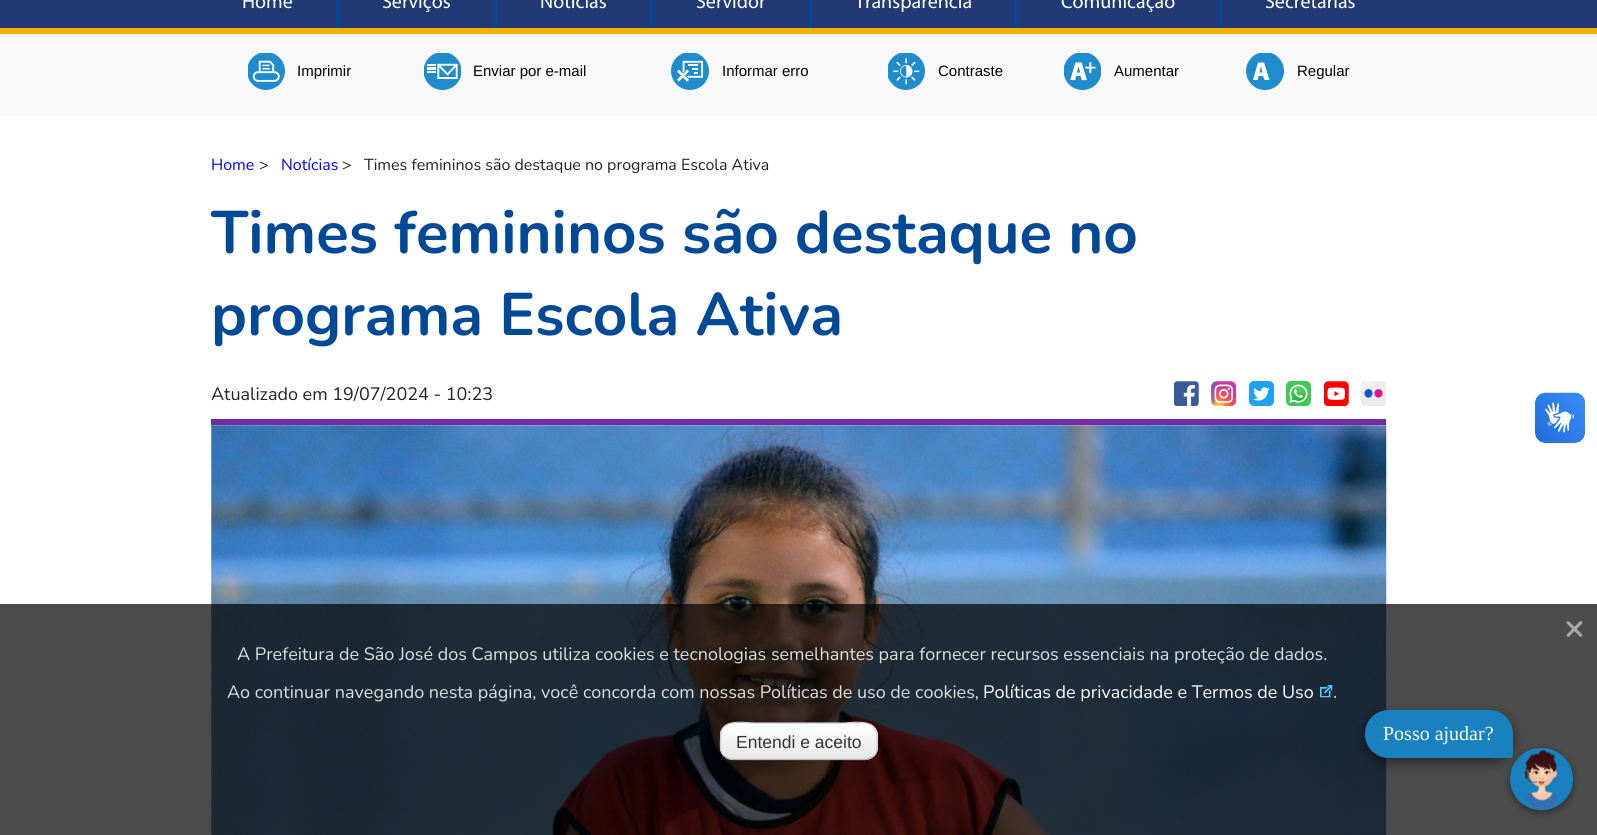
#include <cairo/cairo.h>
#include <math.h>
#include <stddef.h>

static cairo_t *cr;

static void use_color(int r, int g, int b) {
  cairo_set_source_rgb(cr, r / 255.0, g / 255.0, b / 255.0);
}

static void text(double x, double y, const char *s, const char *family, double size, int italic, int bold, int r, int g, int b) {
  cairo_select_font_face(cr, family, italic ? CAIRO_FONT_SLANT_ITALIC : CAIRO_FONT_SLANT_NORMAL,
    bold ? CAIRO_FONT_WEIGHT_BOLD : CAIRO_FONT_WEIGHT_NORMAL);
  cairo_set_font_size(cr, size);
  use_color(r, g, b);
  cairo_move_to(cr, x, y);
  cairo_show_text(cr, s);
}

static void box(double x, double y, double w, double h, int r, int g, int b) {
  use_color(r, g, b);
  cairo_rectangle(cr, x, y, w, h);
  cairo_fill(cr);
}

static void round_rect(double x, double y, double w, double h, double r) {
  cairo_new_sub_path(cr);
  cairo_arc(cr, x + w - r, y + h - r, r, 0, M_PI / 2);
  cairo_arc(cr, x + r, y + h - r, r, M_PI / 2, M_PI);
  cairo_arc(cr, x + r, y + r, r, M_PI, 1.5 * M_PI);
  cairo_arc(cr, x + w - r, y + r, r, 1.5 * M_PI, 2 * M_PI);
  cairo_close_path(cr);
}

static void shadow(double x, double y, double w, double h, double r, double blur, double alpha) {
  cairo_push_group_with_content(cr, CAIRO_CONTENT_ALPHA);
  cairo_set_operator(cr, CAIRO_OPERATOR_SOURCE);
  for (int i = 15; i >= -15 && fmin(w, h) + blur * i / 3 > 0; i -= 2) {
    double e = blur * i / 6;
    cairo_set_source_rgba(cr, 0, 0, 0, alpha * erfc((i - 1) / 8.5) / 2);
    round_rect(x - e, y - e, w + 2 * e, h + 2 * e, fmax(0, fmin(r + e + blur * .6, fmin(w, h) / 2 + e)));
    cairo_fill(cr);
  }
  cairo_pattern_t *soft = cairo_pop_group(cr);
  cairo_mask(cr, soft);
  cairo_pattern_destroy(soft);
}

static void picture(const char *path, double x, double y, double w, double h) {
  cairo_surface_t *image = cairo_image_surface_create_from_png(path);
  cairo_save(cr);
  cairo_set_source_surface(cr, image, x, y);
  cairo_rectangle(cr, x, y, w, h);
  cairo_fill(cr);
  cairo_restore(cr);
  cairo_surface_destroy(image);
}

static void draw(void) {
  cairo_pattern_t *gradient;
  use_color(255, 255, 255);
  cairo_paint(cr);
  box(0, 28, 1597, 6, 248, 175, 5);
  box(0, 0, 1597, 28, 33, 58, 115);
  box(336, 0, 3, 28, 0, 73, 151);
  box(494, 0, 3, 28, 0, 73, 151);
  box(650, 0, 3, 28, 0, 73, 151);
  box(809, 0, 3, 28, 0, 73, 151);
  box(1015, 0, 3, 28, 0, 73, 151);
  box(1219, 0, 3, 28, 0, 73, 151);
  box(0, 34, 1597, 82, 248, 248, 248);
  picture("img_01.png", 248, 53, 37, 37);
  picture("img_02.png", 424, 53, 37, 37);
  picture("img_03.png", 671, 53, 38, 37);
  picture("img_04.png", 888, 53, 37, 37);
  picture("img_05.png", 1064, 53, 37, 37);
  cairo_save(cr);
  cairo_rectangle(cr, 1246, 53, 38, 37);
  cairo_clip(cr);
  use_color(33, 140, 204);
  cairo_arc(cr, 1265, 71, 19, 0, 2 * M_PI);
  cairo_fill(cr);
  cairo_restore(cr);
  use_color(255, 255, 255);
  cairo_new_path(cr);
  cairo_move_to(cr, 1258.5, 76);
  cairo_line_to(cr, 1257.5, 80);
  cairo_line_to(cr, 1253, 80);
  cairo_line_to(cr, 1258, 62.5);
  cairo_line_to(cr, 1264, 62.5);
  cairo_line_to(cr, 1269.5, 80);
  cairo_line_to(cr, 1264.5, 80);
  cairo_line_to(cr, 1263, 76);
  cairo_close_path(cr);
  cairo_move_to(cr, 1262.5, 72.5);
  cairo_line_to(cr, 1261, 66);
  cairo_line_to(cr, 1259.5, 72.5);
  cairo_close_path(cr);
  cairo_fill(cr);
  picture("img_06.png", 1174, 381, 25, 25);
  picture("img_07.png", 1211, 381, 25, 25);
  picture("img_08.png", 1249, 381, 25, 25);
  picture("img_09.png", 1286, 381, 25, 25);
  picture("img_10.png", 1324, 381, 25, 25);
  picture("img_11.png", 1361, 381, 25, 25);
  box(211, 419, 1175, 6, 114, 44, 163);
  picture("img_12.png", 211, 425, 1176, 410);
  picture("img_13.png", 1535, 392, 50, 51);
  picture("img_14.png", 1535, 393, 50, 50);
  cairo_set_source_rgba(cr, 0.004, 0.004, 0.004, 0.7);
  cairo_rectangle(cr, 0, 604, 1597, 231);
  cairo_fill(cr);
  picture("img_15.png", 1320, 685, 13, 13);
  use_color(245, 245, 245);
  round_rect(720, 723, 158, 37, 13);
  cairo_fill(cr);
  cairo_save(cr);
  round_rect(720, 723, 158, 37, 13);
  cairo_clip(cr);
  gradient = cairo_pattern_create_linear(799, 724, 799, 759);
  cairo_pattern_add_color_stop_rgba(gradient, 0, 1, 1, 1, 1);
  cairo_pattern_add_color_stop_rgba(gradient, 1, 0.902, 0.902, 0.902, 1);
  cairo_set_source(cr, gradient);
  cairo_pattern_destroy(gradient);
  cairo_rectangle(cr, 720, 724, 158, 35);
  cairo_fill(cr);
  cairo_restore(cr);
  cairo_new_path(cr);
  cairo_move_to(cr, 873.5, 756);
  cairo_curve_to(cr, 871, 758, 868, 759.5, 865, 759.5);
  cairo_line_to(cr, 732.5, 759.5);
  cairo_curve_to(cr, 729.5, 759.5, 726.5, 758, 724, 756);
  use_color(179, 179, 179);
  cairo_set_line_width(cr, 1.2);
  cairo_stroke(cr);
  cairo_new_path(cr);
  cairo_move_to(cr, 724, 756);
  cairo_curve_to(cr, 719.5, 751.5, 720.5, 745, 720.5, 739);
  cairo_line_to(cr, 721, 731.5);
  cairo_curve_to(cr, 725, 718.5, 746.5, 723, 754.5, 723);
  cairo_line_to(cr, 843, 723);
  cairo_curve_to(cr, 851, 723, 872.5, 718.5, 876.5, 731.5);
  cairo_line_to(cr, 877, 739);
  cairo_curve_to(cr, 877, 745, 878, 751.5, 873.5, 756);
  use_color(204, 204, 204);
  cairo_stroke(cr);
  use_color(0, 0, 0);
  shadow(1510, 750, 63, 63, 31.5, 4, 0.4);
  use_color(25, 129, 190);
  round_rect(1510, 748, 63, 62, 31);
  cairo_fill(cr);
  picture("img_16.png", 1524, 749, 34, 62);
  use_color(0, 0, 0);
  shadow(1365, 715, 148, 48, 24, 6, 0.47);
  use_color(25, 129, 190);
  cairo_new_path(cr);
  cairo_move_to(cr, 1389, 710);
  cairo_line_to(cr, 1489, 710);
  cairo_curve_to(cr, 1502.5, 710, 1513, 720.5, 1513, 734);
  cairo_line_to(cr, 1513, 755);
  cairo_curve_to(cr, 1513, 756.5, 1511.5, 758, 1510, 758);
  cairo_line_to(cr, 1389, 758);
  cairo_curve_to(cr, 1375.5, 758, 1365, 747.5, 1365, 734);
  cairo_curve_to(cr, 1365, 720.5, 1375.5, 710, 1389, 710);
  cairo_close_path(cr);
  cairo_fill(cr);
  text(242, 8, "Home", "Myriad", 20, 0, 0, 255, 255, 255);
  text(382, 8, "Serviços", "Myriad", 20, 0, 0, 255, 255, 255);
  text(540, 8, "Notícias", "Myriad", 20, 0, 0, 255, 255, 255);
  text(696, 8, "Servidor", "Myriad", 20, 0, 0, 255, 255, 255);
  text(855, 8, "Transparência", "Myriad", 20, 0, 0, 255, 255, 255);
  text(1061, 8, "Comunicação", "Myriad", 20, 0, 0, 255, 255, 255);
  text(1265, 8, "Secretarias", "Myriad", 20, 0, 0, 255, 255, 255);
  text(297, 76, "Imprimir", "Liberation Sans", 15, 0, 0, 0, 0, 0);
  text(473, 76, "Enviar por e-mail", "Liberation Sans", 15, 0, 0, 0, 0, 0);
  text(722, 76, "Informar erro", "Liberation Sans", 15, 0, 0, 0, 0, 0);
  text(938, 76, "Contraste", "Liberation Sans", 15, 0, 0, 0, 0, 0);
  text(1114, 76, "Aumentar", "Liberation Sans", 15, 0, 0, 0, 0, 0);
  text(1297, 76, "Regular", "Liberation Sans", 15, 0, 0, 0, 0, 0);
  text(211, 170, "Home", "Nunito", 16, 0, 0, 0, 0, 255);
  text(259, 170, ">", "Nunito", 16, 0, 0, 34, 34, 34);
  text(281, 170, "Notícias", "Nunito", 16, 0, 0, 0, 0, 255);
  text(342, 170, ">", "Nunito", 16, 0, 0, 34, 34, 34);
  text(364, 170, "Times femininos são destaque no programa Escola Ativa", "Nunito", 16, 0, 0, 34, 34, 34);
  text(211, 253, "Times femininos são destaque no", "Nunito", 60, 0, 1, 0, 73, 151);
  text(211, 335, "programa Escola Ativa", "Nunito", 60, 0, 1, 0, 73, 151);
  text(211, 400, "Atualizado em 19/07/2024 - 10:23", "Nunito", 18, 0, 0, 34, 34, 34);
  text(1564, 639, "×", "Nunito", 35, 0, 1, 170, 170, 170);
  text(237, 660, "A Prefeitura de São José dos Campos utiliza cookies e tecnologias semelhantes para fornecer recursos essenciais na proteção de dados.", "Nunito", 18, 0, 0, 219, 224, 223);
  text(227, 698, "Ao continuar navegando nesta página, você concorda com nossas Políticas de uso de cookies,", "Nunito", 18, 0, 0, 219, 224, 223);
  text(983, 698, "Políticas de privacidade e Termos de Uso", "Nunito", 18, 0, 0, 255, 255, 255);
  text(1333, 698, ".", "Nunito", 18, 0, 0, 219, 224, 223);
  text(736, 748, "Entendi e aceito", "Liberation Sans", 17.5, 0, 0, 51, 51, 51);
  text(1383, 740, "Posso ajudar?", "Liberation Serif", 20, 0, 0, 255, 255, 255);
}

int main(void) {
  cairo_surface_t *surface = cairo_image_surface_create(CAIRO_FORMAT_RGB24, 1597, 835);
  cr = cairo_create(surface);
  cairo_font_options_t *options = cairo_font_options_create();
  cairo_font_options_set_hint_metrics(options, CAIRO_HINT_METRICS_OFF);
  cairo_font_options_set_hint_style(options, CAIRO_HINT_STYLE_NONE);
  cairo_set_font_options(cr, options);
  cairo_set_miter_limit(cr, 4);
  draw();
  cairo_surface_write_to_png(surface, "out.png");
  cairo_font_options_destroy(options);
  cairo_destroy(cr);
  cairo_surface_destroy(surface);
  return 0;
}
